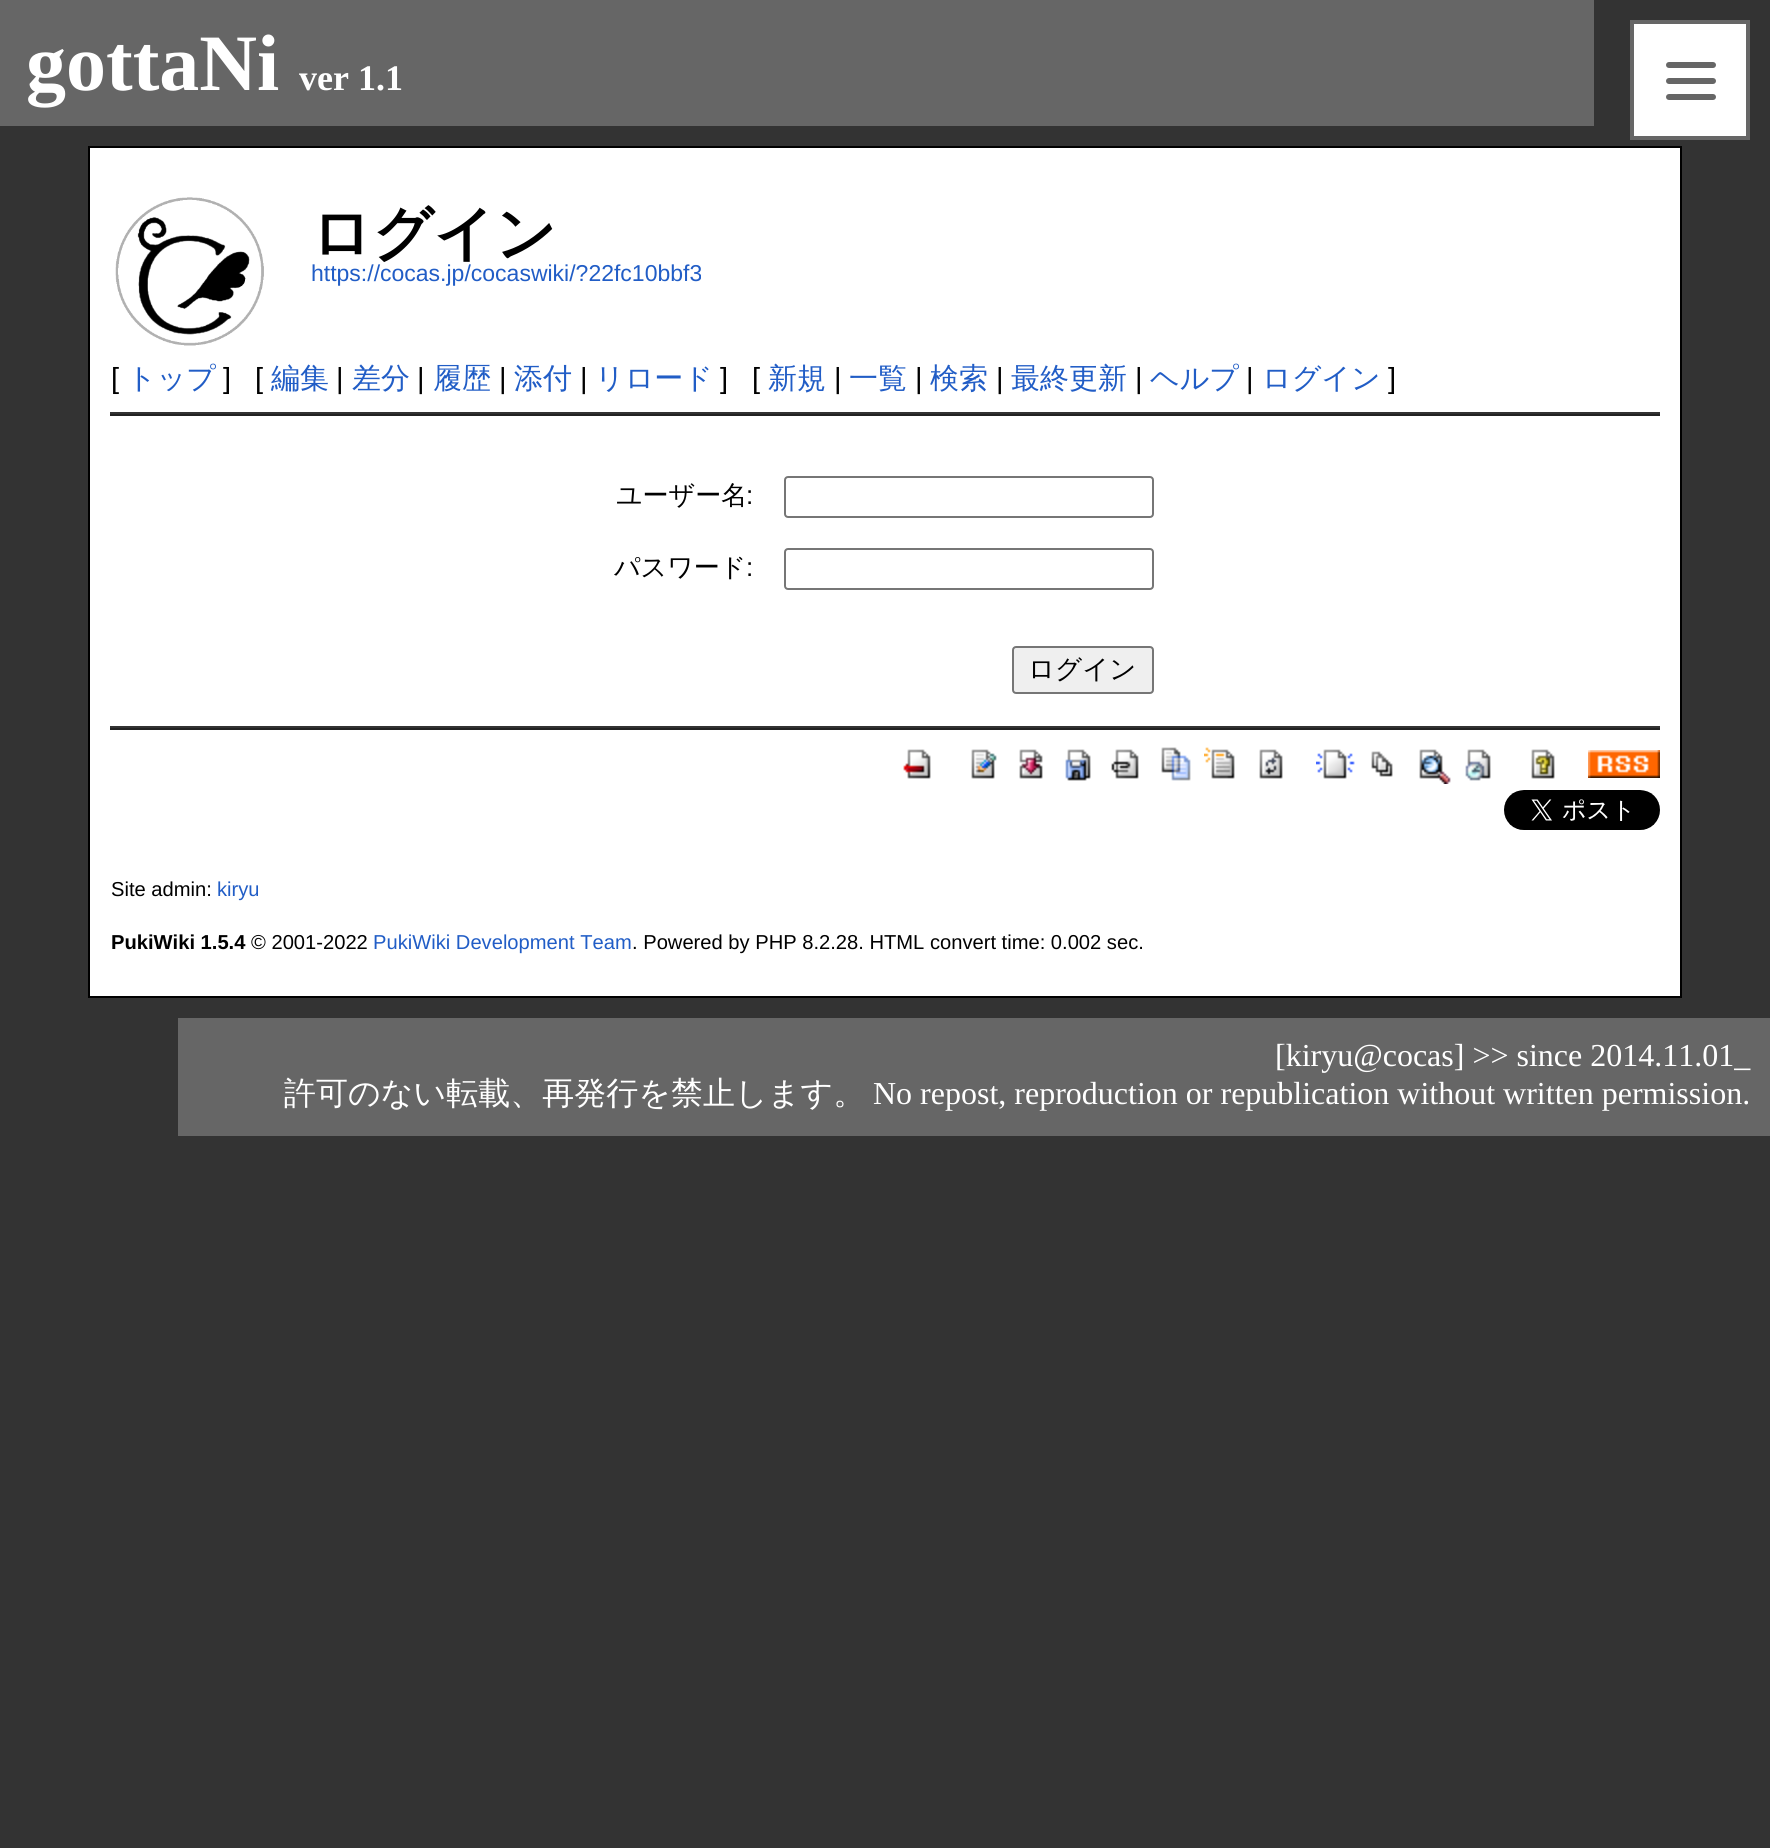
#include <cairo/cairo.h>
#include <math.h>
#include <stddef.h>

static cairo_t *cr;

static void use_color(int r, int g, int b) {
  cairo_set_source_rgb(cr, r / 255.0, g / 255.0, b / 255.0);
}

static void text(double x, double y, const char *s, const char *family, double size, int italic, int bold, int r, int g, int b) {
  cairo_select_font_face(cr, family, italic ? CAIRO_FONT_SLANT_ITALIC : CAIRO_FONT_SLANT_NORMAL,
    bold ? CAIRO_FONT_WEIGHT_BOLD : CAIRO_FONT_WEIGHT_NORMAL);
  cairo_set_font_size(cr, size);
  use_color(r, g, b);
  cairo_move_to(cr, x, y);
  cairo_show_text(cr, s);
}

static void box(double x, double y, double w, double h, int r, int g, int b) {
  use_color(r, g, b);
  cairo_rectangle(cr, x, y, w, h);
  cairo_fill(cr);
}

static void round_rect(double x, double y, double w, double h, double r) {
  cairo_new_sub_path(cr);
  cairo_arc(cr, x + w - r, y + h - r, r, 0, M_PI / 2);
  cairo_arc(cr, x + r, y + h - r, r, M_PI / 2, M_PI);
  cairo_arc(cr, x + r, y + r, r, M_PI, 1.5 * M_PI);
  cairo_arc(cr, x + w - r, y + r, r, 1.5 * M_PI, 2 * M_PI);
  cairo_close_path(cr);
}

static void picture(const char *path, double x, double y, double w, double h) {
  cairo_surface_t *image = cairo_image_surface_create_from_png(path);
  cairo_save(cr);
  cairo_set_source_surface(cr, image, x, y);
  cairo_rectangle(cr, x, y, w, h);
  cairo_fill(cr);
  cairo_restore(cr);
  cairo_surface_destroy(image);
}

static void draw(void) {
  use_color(51, 51, 51);
  cairo_paint(cr);
  box(0, 0, 1594, 126, 102, 102, 102);
  use_color(255, 255, 255);
  cairo_rectangle(cr, 1632, 22, 116, 116);
  cairo_fill_preserve(cr);
  use_color(102, 102, 102);
  cairo_set_line_width(cr, 4);
  cairo_stroke(cr);
  round_rect(1666, 78, 50, 6, 3);
  cairo_fill(cr);
  round_rect(1666, 62, 50, 6, 3);
  cairo_fill(cr);
  round_rect(1666, 94, 50, 6, 3);
  cairo_fill(cr);
  use_color(255, 255, 255);
  cairo_rectangle(cr, 89, 147, 1592, 850);
  cairo_fill_preserve(cr);
  use_color(0, 0, 0);
  cairo_set_line_width(cr, 2);
  cairo_stroke(cr);
  picture("img_01.png", 115, 197, 149, 149);
  box(110, 412, 1550, 2, 51, 51, 51);
  box(110, 414, 1550, 2, 34, 34, 34);
  round_rect(785, 477, 368, 40, 3);
  use_color(118, 118, 118);
  cairo_stroke(cr);
  round_rect(785, 549, 368, 40, 3);
  cairo_stroke(cr);
  use_color(239, 239, 239);
  round_rect(1013, 647, 140, 46, 3);
  cairo_fill_preserve(cr);
  use_color(118, 118, 118);
  cairo_stroke(cr);
  box(110, 726, 1550, 2, 51, 51, 51);
  box(110, 728, 1550, 2, 34, 34, 34);
  picture("img_02.png", 903, 749, 28, 30);
  picture("img_03.png", 971, 749, 26, 30);
  picture("img_04.png", 1019, 749, 24, 30);
  picture("img_05.png", 1065, 749, 26, 32);
  picture("img_06.png", 1111, 749, 28, 30);
  picture("img_07.png", 1161, 747, 30, 34);
  picture("img_08.png", 1204, 747, 31, 32);
  picture("img_09.png", 1259, 749, 24, 30);
  picture("img_10.png", 1316, 749, 39, 30);
  picture("img_11.png", 1371, 751, 22, 26);
  picture("img_12.png", 1419, 749, 32, 35);
  picture("img_13.png", 1465, 749, 26, 32);
  picture("img_14.png", 1531, 749, 24, 30);
  picture("img_15.png", 1588, 750, 72, 28);
  picture("img_16.png", 1504, 790, 156, 40);
  box(178, 1018, 1592, 118, 102, 102, 102);
  text(26, 90, "gottaNi", "Liberation Serif", 80, 0, 1, 255, 255, 255);
  text(299, 90, "ver 1.1", "Liberation Serif", 36, 0, 1, 255, 255, 255);
  text(311, 254, "ログイン", "WenQuanYi Zen Hei", 60, 0, 1, 0, 0, 0);
  text(311, 281, "https://cocas.jp/cocaswiki/?22fc10bbf3", "Liberation Sans", 23, 0, 0, 33, 93, 198);
  text(111, 388, "[", "Liberation Sans", 29, 0, 0, 0, 0, 0);
  text(127, 388, "トップ", "WenQuanYi Zen Hei Medium", 29, 0, 0, 33, 93, 198);
  text(223, 388, "]", "Liberation Sans", 29, 0, 0, 0, 0, 0);
  text(255, 388, "[", "Liberation Sans", 29, 0, 0, 0, 0, 0);
  text(271, 388, "編集", "WenQuanYi Zen Hei Medium", 29, 0, 0, 33, 93, 198);
  text(336, 388, "|", "Liberation Sans", 29, 0, 0, 0, 0, 0);
  text(352, 388, "差分", "WenQuanYi Zen Hei Medium", 29, 0, 0, 33, 93, 198);
  text(417, 388, "|", "Liberation Sans", 29, 0, 0, 0, 0, 0);
  text(433, 388, "履歴", "WenQuanYi Zen Hei Medium", 29, 0, 0, 33, 93, 198);
  text(499, 388, "|", "Liberation Sans", 29, 0, 0, 0, 0, 0);
  text(514, 388, "添付", "WenQuanYi Zen Hei Medium", 29, 0, 0, 33, 93, 198);
  text(580, 388, "|", "Liberation Sans", 29, 0, 0, 0, 0, 0);
  text(595, 388, "リロード", "WenQuanYi Zen Hei Medium", 29, 0, 0, 33, 93, 198);
  text(720, 388, "]", "Liberation Sans", 29, 0, 0, 0, 0, 0);
  text(752, 388, "[", "Liberation Sans", 29, 0, 0, 0, 0, 0);
  text(768, 388, "新規", "WenQuanYi Zen Hei Medium", 29, 0, 0, 33, 93, 198);
  text(834, 388, "|", "Liberation Sans", 29, 0, 0, 0, 0, 0);
  text(849, 388, "一覧", "WenQuanYi Zen Hei Medium", 29, 0, 0, 33, 93, 198);
  text(915, 388, "|", "Liberation Sans", 29, 0, 0, 0, 0, 0);
  text(930, 388, "検索", "WenQuanYi Zen Hei Medium", 29, 0, 0, 33, 93, 198);
  text(996, 388, "|", "Liberation Sans", 29, 0, 0, 0, 0, 0);
  text(1011, 388, "最終更新", "WenQuanYi Zen Hei Medium", 29, 0, 0, 33, 93, 198);
  text(1135, 388, "|", "Liberation Sans", 29, 0, 0, 0, 0, 0);
  text(1150, 388, "ヘルプ", "WenQuanYi Zen Hei Medium", 29, 0, 0, 33, 93, 198);
  text(1246, 388, "|", "Liberation Sans", 29, 0, 0, 0, 0, 0);
  text(1262, 388, "ログイン", "WenQuanYi Zen Hei Medium", 29, 0, 0, 33, 93, 198);
  text(1388, 388, "]", "Liberation Sans", 29, 0, 0, 0, 0, 0);
  text(616, 504, "ユーザー名", "WenQuanYi Zen Hei Medium", 26, 0, 0, 0, 0, 0);
  text(746, 504, ":", "Liberation Sans", 26, 0, 0, 0, 0, 0);
  text(614, 576, "パスワード", "WenQuanYi Zen Hei Medium", 26, 0, 0, 0, 0, 0);
  text(746, 576, ":", "Liberation Sans", 26, 0, 0, 0, 0, 0);
  text(1028, 678, "ログイン", "WenQuanYi Zen Hei Medium", 26.5, 0, 0, 0, 0, 0);
  text(111, 896, "Site admin:", "Liberation Sans", 20.15, 0, 0, 0, 0, 0);
  text(217, 896, "kiryu", "Liberation Sans", 20.15, 0, 0, 33, 93, 198);
  text(111, 949, "PukiWiki 1.5.4", "Liberation Sans", 20.15, 0, 1, 0, 0, 0);
  text(251, 949, "© 2001-2022", "Liberation Sans", 20.15, 0, 0, 0, 0, 0);
  text(373, 949, "PukiWiki Development Team", "Liberation Sans", 20.15, 0, 0, 33, 93, 198);
  text(632, 949, ". Powered by PHP 8.2.28. HTML convert time: 0.002 sec.", "Liberation Sans", 20.15, 0, 0, 0, 0, 0);
  text(1275, 1066, "[kiryu@cocas] >> since 2014.11.01_", "Liberation Serif", 32, 0, 0, 255, 255, 255);
  text(284, 1104, "許可のない転載、再発行を禁止します。", "WenQuanYi Zen Hei Medium", 32, 0, 0, 255, 255, 255);
  text(873, 1104, "No repost, reproduction or republication without written permission.", "Liberation Serif", 32, 0, 0, 255, 255, 255);
}

int main(void) {
  cairo_surface_t *surface = cairo_image_surface_create(CAIRO_FORMAT_RGB24, 1770, 1848);
  cr = cairo_create(surface);
  cairo_font_options_t *options = cairo_font_options_create();
  cairo_font_options_set_hint_metrics(options, CAIRO_HINT_METRICS_OFF);
  cairo_font_options_set_hint_style(options, CAIRO_HINT_STYLE_NONE);
  cairo_set_font_options(cr, options);
  cairo_set_miter_limit(cr, 4);
  draw();
  cairo_surface_write_to_png(surface, "out.png");
  cairo_font_options_destroy(options);
  cairo_destroy(cr);
  cairo_surface_destroy(surface);
  return 0;
}
